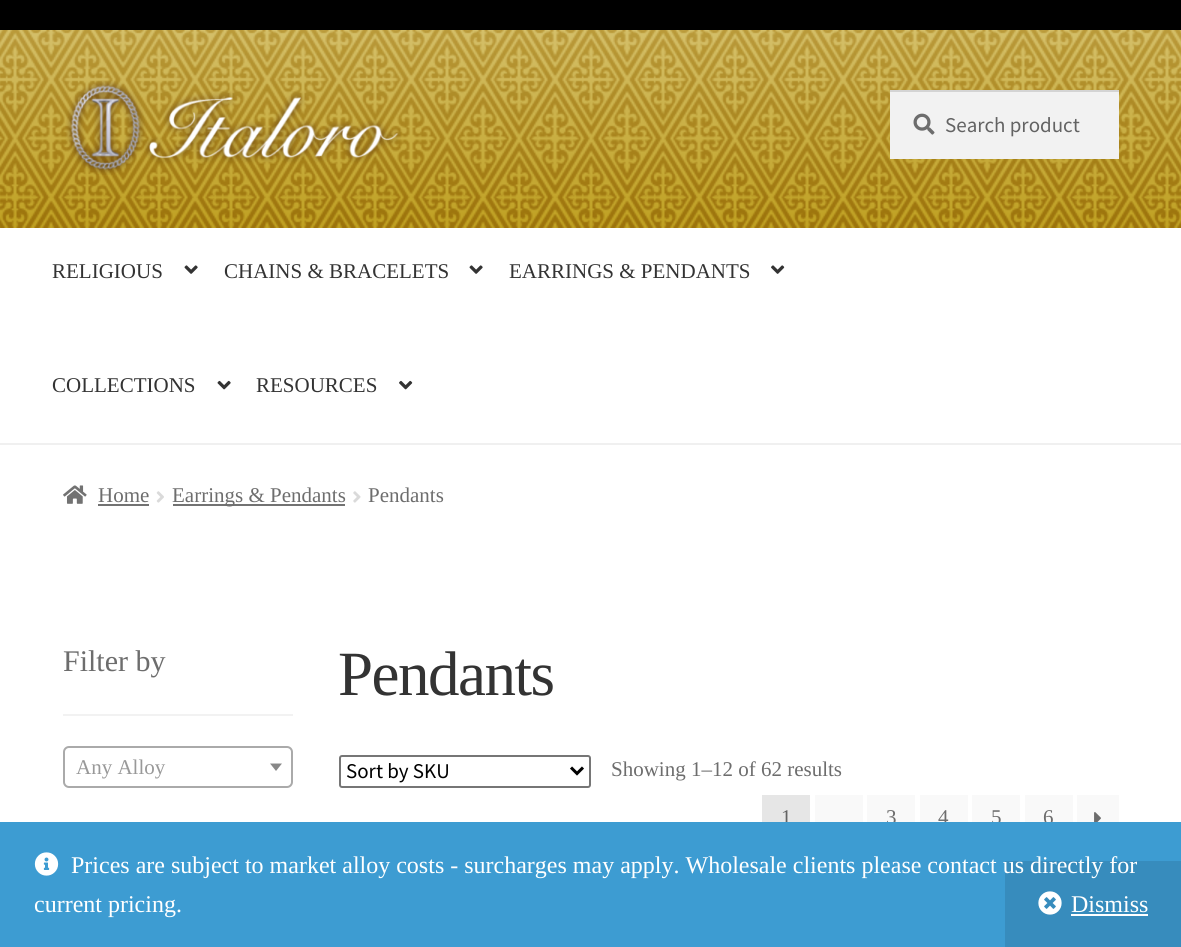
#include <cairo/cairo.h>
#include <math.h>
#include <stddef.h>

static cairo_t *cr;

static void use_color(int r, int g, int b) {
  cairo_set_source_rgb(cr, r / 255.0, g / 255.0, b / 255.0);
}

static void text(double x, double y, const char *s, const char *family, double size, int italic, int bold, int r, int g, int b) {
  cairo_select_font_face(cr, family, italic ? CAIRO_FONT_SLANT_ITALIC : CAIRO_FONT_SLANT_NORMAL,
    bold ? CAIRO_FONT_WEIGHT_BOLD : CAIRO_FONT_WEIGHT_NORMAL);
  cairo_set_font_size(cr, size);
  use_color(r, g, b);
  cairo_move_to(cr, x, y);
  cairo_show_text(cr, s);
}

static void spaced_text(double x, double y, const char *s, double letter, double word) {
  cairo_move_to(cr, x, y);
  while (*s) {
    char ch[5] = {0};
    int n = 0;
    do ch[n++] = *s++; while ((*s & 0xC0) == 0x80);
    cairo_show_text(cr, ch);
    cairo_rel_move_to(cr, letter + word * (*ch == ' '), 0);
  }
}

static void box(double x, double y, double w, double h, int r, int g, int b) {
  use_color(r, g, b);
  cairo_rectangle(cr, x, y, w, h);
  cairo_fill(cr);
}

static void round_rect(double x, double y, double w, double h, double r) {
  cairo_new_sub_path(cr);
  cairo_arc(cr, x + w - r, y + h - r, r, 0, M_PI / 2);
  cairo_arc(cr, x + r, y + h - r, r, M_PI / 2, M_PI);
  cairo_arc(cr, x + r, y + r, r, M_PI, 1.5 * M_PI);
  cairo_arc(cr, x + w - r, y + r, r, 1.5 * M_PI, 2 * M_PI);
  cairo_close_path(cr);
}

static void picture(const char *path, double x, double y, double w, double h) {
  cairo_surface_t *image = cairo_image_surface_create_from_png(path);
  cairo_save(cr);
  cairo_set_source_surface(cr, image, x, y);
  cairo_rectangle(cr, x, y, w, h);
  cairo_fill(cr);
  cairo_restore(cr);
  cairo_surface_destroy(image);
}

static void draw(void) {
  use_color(255, 255, 255);
  cairo_paint(cr);
  picture("img_01.png", 0, 30, 1181, 198);
  box(0, 0, 1181, 30, 0, 0, 0);
  box(0, 443, 1181, 2, 240, 240, 240);
  picture("img_02.png", 65, 80, 336, 95);
  box(890, 92, 229, 67, 242, 242, 242);
  picture("img_03.png", 913, 113, 22, 22);
  box(890, 90, 229, 2, 212, 212, 212);
  picture("img_04.png", 184, 265, 14, 9);
  picture("img_04.png", 469, 265, 14, 9);
  picture("img_05.png", 771, 265, 14, 9);
  picture("img_06.png", 217, 380, 14, 10);
  picture("img_07.png", 399, 380, 14, 10);
  picture("img_08.png", 63, 485, 24, 19);
  box(98, 504, 51, 2, 114, 114, 114);
  picture("img_09.png", 156, 491, 8, 12);
  box(173, 504, 172, 2, 114, 114, 114);
  picture("img_10.png", 353, 491, 8, 12);
  box(63, 714, 230, 2, 242, 242, 242);
  round_rect(64, 747, 228, 40, 5);
  use_color(170, 170, 170);
  cairo_stroke(cr);
  use_color(136, 136, 136);
  cairo_new_path(cr);
  cairo_move_to(cr, 270, 763.5);
  cairo_line_to(cr, 282, 763.5);
  cairo_line_to(cr, 276, 771);
  cairo_close_path(cr);
  cairo_fill(cr);
  round_rect(340, 756, 250, 31, 2);
  use_color(118, 118, 118);
  cairo_stroke(cr);
  cairo_new_path(cr);
  cairo_move_to(cr, 571, 767.5);
  cairo_line_to(cr, 577, 773.5);
  cairo_line_to(cr, 583, 767.5);
  use_color(0, 0, 0);
  cairo_set_line_width(cr, 3);
  cairo_stroke(cr);
  box(762, 795, 48, 27, 230, 230, 230);
  box(815, 795, 48, 27, 249, 249, 249);
  box(867, 795, 48, 27, 249, 249, 249);
  box(920, 795, 48, 27, 249, 249, 249);
  box(972, 795, 48, 27, 249, 249, 249);
  box(1025, 795, 48, 27, 249, 249, 249);
  box(1077, 795, 42, 27, 249, 249, 249);
  picture("img_11.png", 1094, 812, 7, 10);
  text(945, 132, "Search product", "Source Sans Pro", 21, 0, 0, 99, 99, 99);
  text(52, 278, "RELIGIOUS", "Liberation Serif", 21, 0, 0, 51, 51, 51);
  text(224, 278, "CHAINS & BRACELETS", "Liberation Serif", 21, 0, 0, 51, 51, 51);
  text(509, 278, "EARRINGS & PENDANTS", "Liberation Serif", 21, 0, 0, 51, 51, 51);
  text(52, 392, "COLLECTIONS", "Liberation Serif", 21, 0, 0, 51, 51, 51);
  text(256, 392, "RESOURCES", "Liberation Serif", 21, 0, 0, 51, 51, 51);
  text(98, 502, "Home", "Liberation Serif", 21, 0, 0, 109, 109, 109);
  text(172, 502, "Earrings & Pendants", "Liberation Serif", 21, 0, 0, 109, 109, 109);
  text(368, 502, "Pendants", "Liberation Serif", 21, 0, 0, 109, 109, 109);
  text(63, 671, "Filter by", "Liberation Serif", 30, 0, 0, 109, 109, 109);
  text(76, 774, "Any Alloy", "Liberation Serif", 21, 0, 0, 153, 153, 153);
  cairo_set_font_size(cr, 63);
  use_color(51, 51, 51);
  spaced_text(338, 695, "Pendants", -1.5, 0);
  text(346, 778, "Sort by SKU", "Source Sans Pro", 21, 0, 0, 0, 0, 0);
  text(611, 776, "Showing 1–12 of 62 results", "Liberation Serif", 21, 0, 0, 109, 109, 109);
  text(781, 824, "1", "Liberation Serif", 21, 0, 0, 99, 99, 99);
  text(886, 824, "3", "Liberation Serif", 21, 0, 0, 109, 109, 109);
  text(938, 824, "4", "Liberation Serif", 21, 0, 0, 109, 109, 109);
  text(991, 824, "5", "Liberation Serif", 21, 0, 0, 109, 109, 109);
  text(1043, 824, "6", "Liberation Serif", 21, 0, 0, 109, 109, 109);
  box(0, 822, 1181, 125, 61, 156, 210);
  picture("img_12.png", 34, 852, 25, 24);
  text(34, 912, "current pricing.", "Liberation Serif", 24, 0, 0, 255, 255, 255);
  box(1005, 861, 176, 86, 55, 140, 189);
  text(71, 873, "Prices are subject to market alloy costs - surcharges may apply. Wholesale clients please contact us directly for", "Liberation Serif", 24, 0, 0, 255, 255, 255);
  picture("img_13.png", 1038, 891, 24, 24);
  text(1071, 912, "Dismiss", "Liberation Serif", 24, 0, 0, 255, 255, 255);
  box(1071, 914, 77, 2, 255, 255, 255);
}

int main(void) {
  cairo_surface_t *surface = cairo_image_surface_create(CAIRO_FORMAT_RGB24, 1181, 947);
  cr = cairo_create(surface);
  cairo_font_options_t *options = cairo_font_options_create();
  cairo_font_options_set_hint_metrics(options, CAIRO_HINT_METRICS_OFF);
  cairo_font_options_set_hint_style(options, CAIRO_HINT_STYLE_NONE);
  cairo_set_font_options(cr, options);
  cairo_set_miter_limit(cr, 4);
  draw();
  cairo_surface_write_to_png(surface, "out.png");
  cairo_font_options_destroy(options);
  cairo_destroy(cr);
  cairo_surface_destroy(surface);
  return 0;
}
